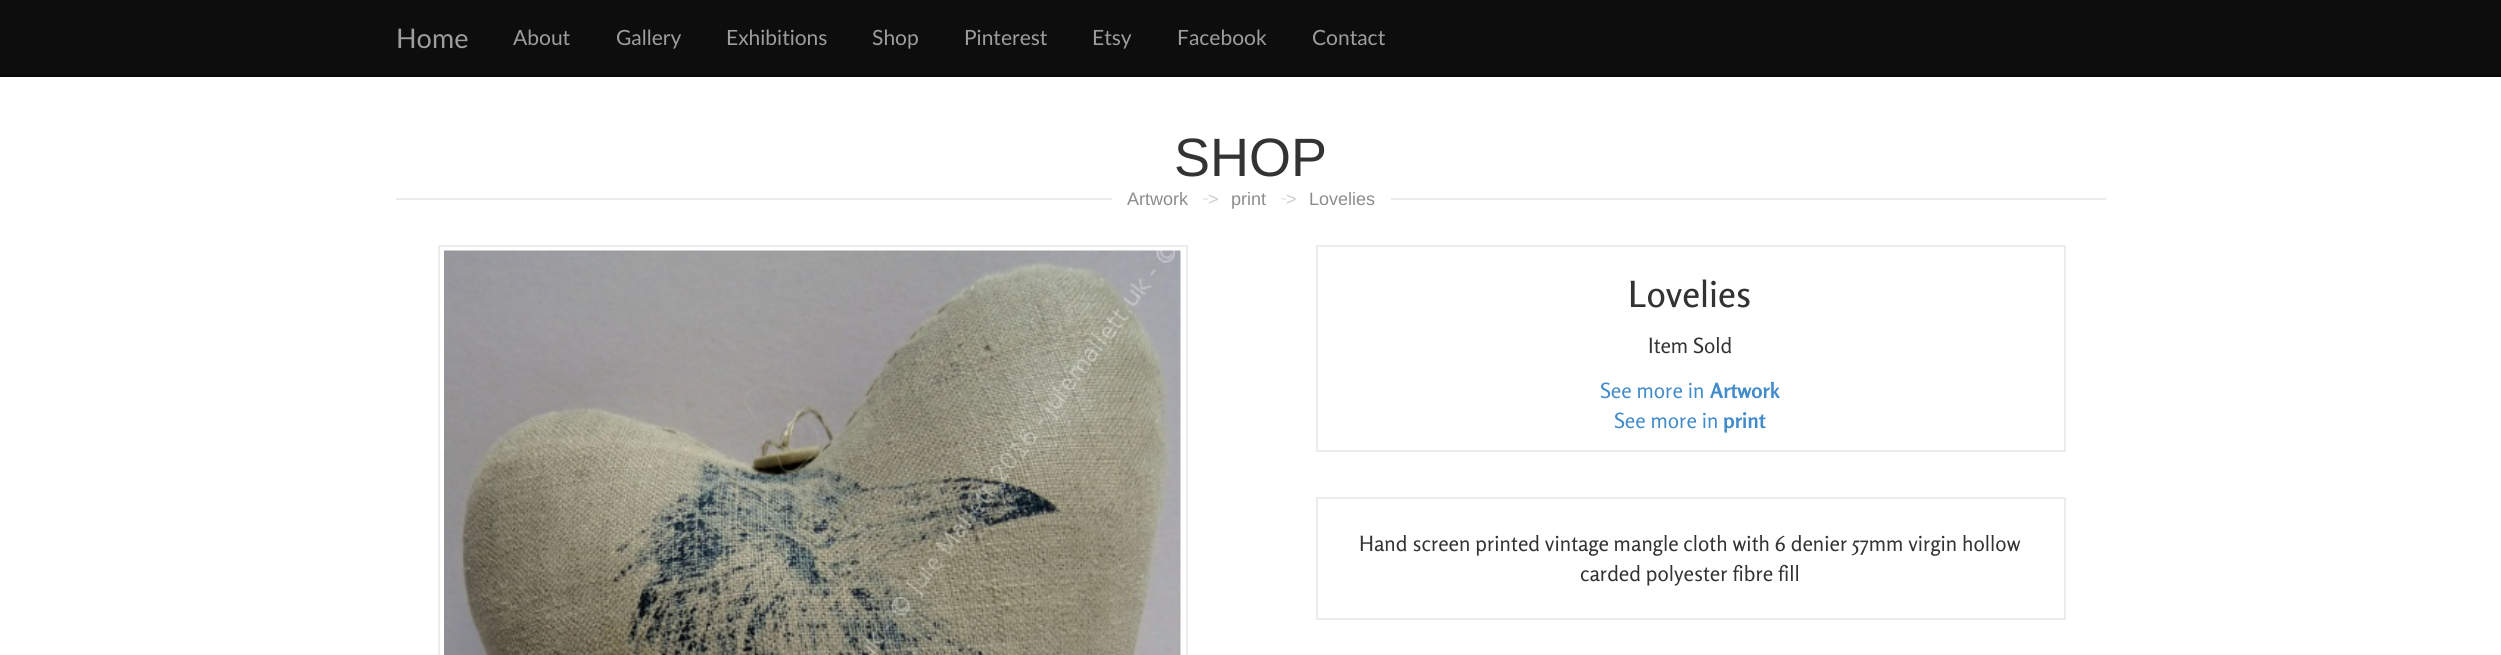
#include <cairo/cairo.h>
#include <math.h>
#include <stddef.h>

static cairo_t *cr;

static void use_color(int r, int g, int b) {
  cairo_set_source_rgb(cr, r / 255.0, g / 255.0, b / 255.0);
}

static void text(double x, double y, const char *s, const char *family, double size, int italic, int bold, int r, int g, int b) {
  cairo_select_font_face(cr, family, italic ? CAIRO_FONT_SLANT_ITALIC : CAIRO_FONT_SLANT_NORMAL,
    bold ? CAIRO_FONT_WEIGHT_BOLD : CAIRO_FONT_WEIGHT_NORMAL);
  cairo_set_font_size(cr, size);
  use_color(r, g, b);
  cairo_move_to(cr, x, y);
  cairo_show_text(cr, s);
}

static void box(double x, double y, double w, double h, int r, int g, int b) {
  use_color(r, g, b);
  cairo_rectangle(cr, x, y, w, h);
  cairo_fill(cr);
}

static void picture(const char *path, double x, double y, double w, double h) {
  cairo_surface_t *image = cairo_image_surface_create_from_png(path);
  cairo_save(cr);
  cairo_set_source_surface(cr, image, x, y);
  cairo_rectangle(cr, x, y, w, h);
  cairo_fill(cr);
  cairo_restore(cr);
  cairo_surface_destroy(image);
}

static void draw(void) {
  use_color(255, 255, 255);
  cairo_paint(cr);
  box(0, 0, 2501, 75, 13, 13, 13);
  box(0, 75, 2501, 2, 8, 8, 8);
  box(396, 198, 1710, 2, 236, 236, 236);
  box(1112, 198, 91, 2, 255, 255, 255);
  box(1208, 198, 73, 2, 255, 255, 255);
  box(1286, 198, 105, 2, 255, 255, 255);
  cairo_rectangle(cr, 439, 246, 748, 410);
  use_color(236, 236, 236);
  cairo_stroke(cr);
  picture("img_01.png", 444, 250, 737, 405);
  cairo_rectangle(cr, 1317, 246, 748, 205);
  cairo_stroke(cr);
  cairo_rectangle(cr, 1317, 498, 748, 121);
  cairo_stroke(cr);
  text(396, 48, "Home", "Lato", 27, 0, 0, 157, 157, 157);
  text(513, 45, "About", "Lato", 21, 0, 0, 157, 157, 157);
  text(616, 45, "Gallery", "Lato", 21, 0, 0, 157, 157, 157);
  text(726, 45, "Exhibitions", "Lato", 21, 0, 0, 157, 157, 157);
  text(872, 45, "Shop", "Lato", 21, 0, 0, 157, 157, 157);
  text(964, 45, "Pinterest", "Lato", 21, 0, 0, 157, 157, 157);
  text(1092, 45, "Etsy", "Lato", 21, 0, 0, 157, 157, 157);
  text(1177, 45, "Facebook", "Lato", 21, 0, 0, 157, 157, 157);
  text(1312, 45, "Contact", "Lato", 21, 0, 0, 157, 157, 157);
  text(1174, 176, "SHOP", "Liberation Sans", 54, 0, 0, 51, 51, 51);
  text(1127, 205, "Artwork", "Liberation Sans", 18, 0, 0, 140, 140, 140);
  text(1208, 205, ">", "Liberation Sans", 18, 0, 0, 204, 204, 204);
  text(1231, 205, "print", "Liberation Sans", 18, 0, 0, 140, 140, 140);
  text(1286, 205, ">", "Liberation Sans", 18, 0, 0, 204, 204, 204);
  text(1309, 205, "Lovelies", "Liberation Sans", 18, 0, 0, 140, 140, 140);
  text(1628, 307, "Lovelies", "Rosario Medium", 36, 0, 0, 51, 51, 51);
  text(1648, 353, "Item Sold", "Rosario", 21, 0, 0, 51, 51, 51);
  text(1600, 398, "See more in", "Rosario", 21, 0, 0, 66, 139, 202);
  text(1710, 398, "Artwork", "Rosario", 21, 0, 1, 66, 139, 202);
  text(1614, 428, "See more in", "Rosario", 21, 0, 0, 66, 139, 202);
  text(1723, 428, "print", "Rosario", 21, 0, 1, 66, 139, 202);
  text(1359, 551, "Hand screen printed vintage mangle cloth with 6 denier 57mm virgin hollow", "Rosario", 21, 0, 0, 51, 51, 51);
  text(1580, 581, "carded polyester fibre fill", "Rosario", 21, 0, 0, 51, 51, 51);
}

int main(void) {
  cairo_surface_t *surface = cairo_image_surface_create(CAIRO_FORMAT_RGB24, 2501, 655);
  cr = cairo_create(surface);
  cairo_font_options_t *options = cairo_font_options_create();
  cairo_font_options_set_hint_metrics(options, CAIRO_HINT_METRICS_OFF);
  cairo_font_options_set_hint_style(options, CAIRO_HINT_STYLE_NONE);
  cairo_set_font_options(cr, options);
  cairo_set_miter_limit(cr, 4);
  draw();
  cairo_surface_write_to_png(surface, "out.png");
  cairo_font_options_destroy(options);
  cairo_destroy(cr);
  cairo_surface_destroy(surface);
  return 0;
}
